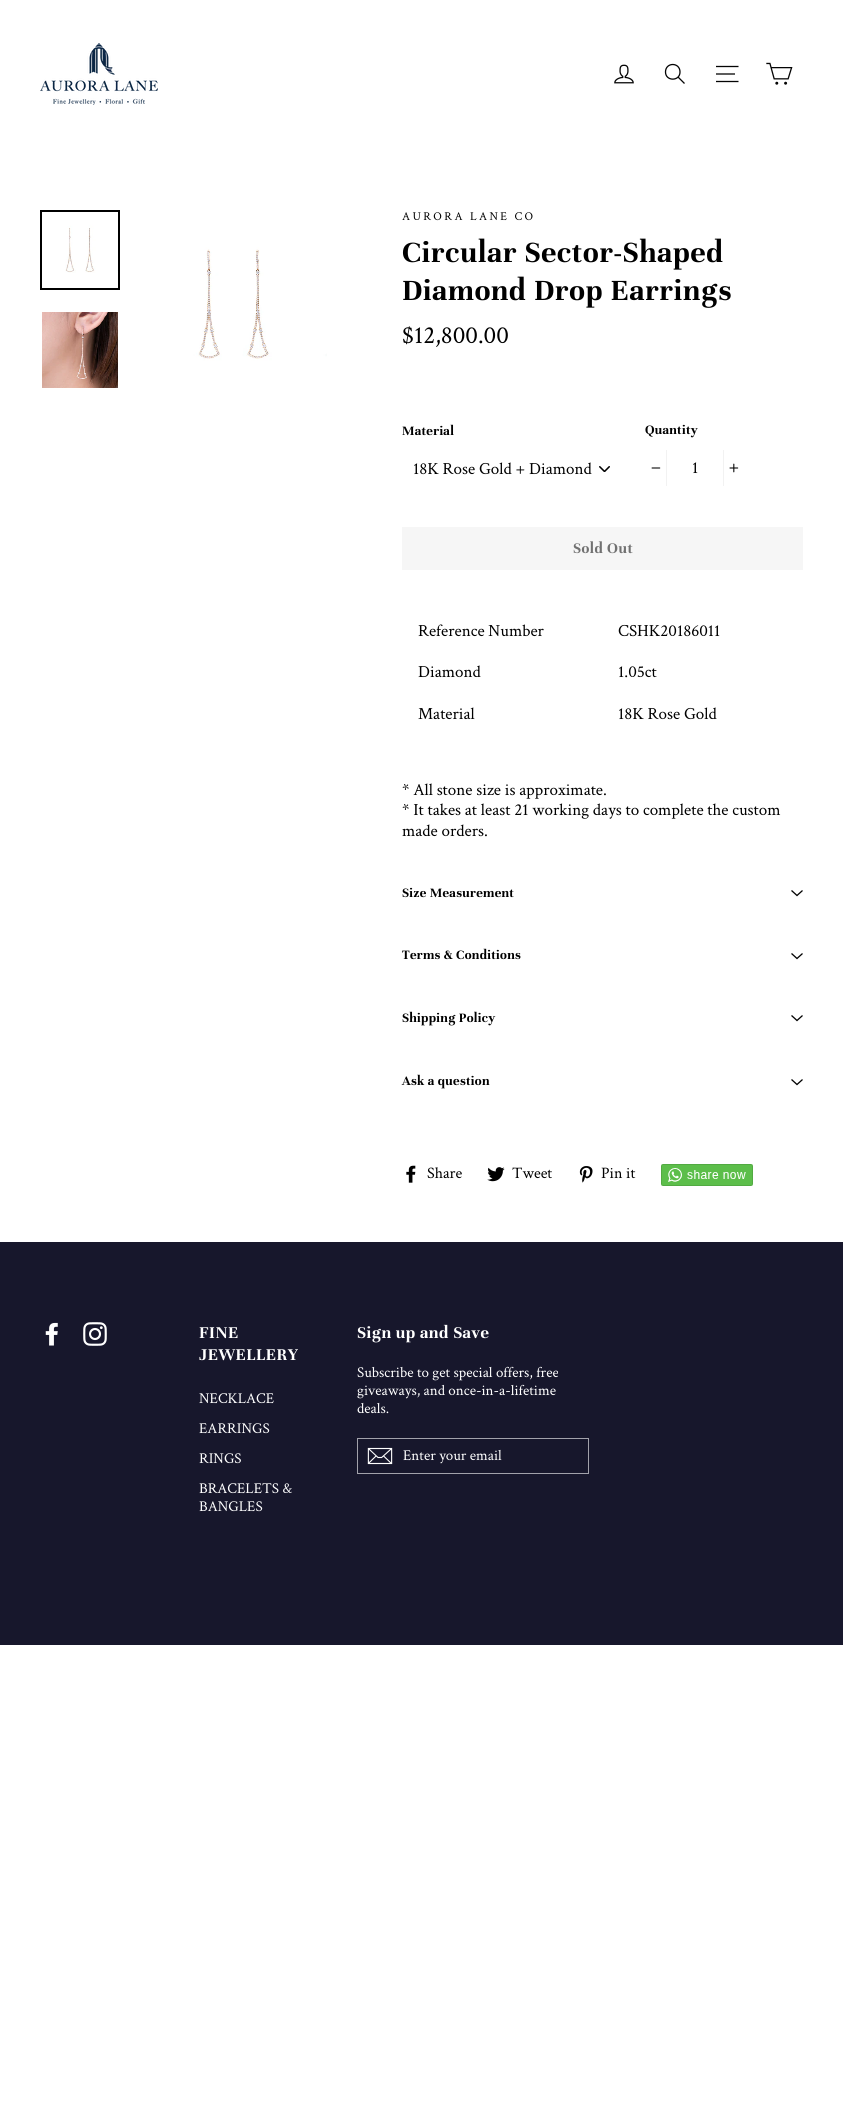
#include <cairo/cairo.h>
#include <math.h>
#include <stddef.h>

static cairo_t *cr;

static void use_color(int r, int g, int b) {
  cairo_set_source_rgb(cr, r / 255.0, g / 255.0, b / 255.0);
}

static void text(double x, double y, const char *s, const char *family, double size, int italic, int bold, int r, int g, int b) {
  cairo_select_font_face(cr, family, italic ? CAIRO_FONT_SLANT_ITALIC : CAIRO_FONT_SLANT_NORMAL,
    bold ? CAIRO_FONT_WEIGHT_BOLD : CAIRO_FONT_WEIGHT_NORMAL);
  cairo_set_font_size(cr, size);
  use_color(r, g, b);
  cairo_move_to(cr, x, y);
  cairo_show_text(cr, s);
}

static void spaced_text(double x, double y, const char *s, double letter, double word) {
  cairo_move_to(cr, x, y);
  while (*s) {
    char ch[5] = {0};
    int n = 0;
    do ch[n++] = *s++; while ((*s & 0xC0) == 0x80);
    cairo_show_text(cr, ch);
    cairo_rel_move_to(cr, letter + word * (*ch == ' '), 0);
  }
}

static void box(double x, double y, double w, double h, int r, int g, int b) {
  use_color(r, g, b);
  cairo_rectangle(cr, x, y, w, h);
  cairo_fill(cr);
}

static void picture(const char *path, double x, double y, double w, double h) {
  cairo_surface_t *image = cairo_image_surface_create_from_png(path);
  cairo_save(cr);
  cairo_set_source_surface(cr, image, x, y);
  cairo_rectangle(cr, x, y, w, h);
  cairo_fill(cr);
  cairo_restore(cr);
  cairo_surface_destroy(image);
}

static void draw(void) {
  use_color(255, 255, 255);
  cairo_paint(cr);
  picture("img_01.png", 40, 43, 118, 62);
  picture("img_02.png", 614, 64, 20, 20);
  cairo_new_path(cr);
  cairo_move_to(cr, 680, 72);
  cairo_curve_to(cr, 680, 81.5, 665.5, 81.5, 665.5, 72);
  cairo_curve_to(cr, 665.5, 62, 680, 62, 680, 72);
  cairo_close_path(cr);
  cairo_move_to(cr, 684.5, 83.5);
  cairo_line_to(cr, 678, 77);
  use_color(4, 4, 4);
  cairo_set_line_width(cr, 1.3);
  cairo_stroke(cr);
  cairo_new_path(cr);
  cairo_move_to(cr, 716, 66.5);
  cairo_line_to(cr, 738.5, 66.5);
  cairo_move_to(cr, 716, 74);
  cairo_line_to(cr, 735, 74);
  cairo_move_to(cr, 716, 81.5);
  cairo_line_to(cr, 738.5, 81.5);
  cairo_stroke(cr);
  picture("img_03.png", 766, 62, 27, 23);
  cairo_rectangle(cr, 41, 211, 78, 78);
  use_color(0, 0, 0);
  cairo_set_line_width(cr, 2);
  cairo_stroke(cr);
  picture("img_04.png", 42, 212, 76, 76);
  picture("img_05.png", 42, 312, 76, 76);
  picture("img_06.png", 140, 210, 187, 188);
  picture("img_07.png", 599, 466, 11, 6);
  box(666, 450, 1, 36, 242, 242, 242);
  picture("img_08.png", 651, 467, 10, 2);
  box(723, 450, 1, 36, 242, 242, 242);
  picture("img_09.png", 729, 463, 10, 10);
  box(402, 527, 401, 43, 246, 246, 246);
  cairo_new_path(cr);
  cairo_move_to(cr, 791.5, 890.5);
  cairo_line_to(cr, 797, 895.5);
  cairo_line_to(cr, 802.5, 890.5);
  use_color(0, 0, 0);
  cairo_set_line_width(cr, 1.3);
  cairo_stroke(cr);
  cairo_new_path(cr);
  cairo_move_to(cr, 791.5, 953.5);
  cairo_line_to(cr, 797, 958.5);
  cairo_line_to(cr, 802.5, 953.5);
  cairo_stroke(cr);
  cairo_new_path(cr);
  cairo_move_to(cr, 791.5, 1015.5);
  cairo_line_to(cr, 797, 1020.5);
  cairo_line_to(cr, 802.5, 1015.5);
  cairo_stroke(cr);
  cairo_new_path(cr);
  cairo_move_to(cr, 791.5, 1079.5);
  cairo_line_to(cr, 797, 1084.5);
  cairo_line_to(cr, 802.5, 1079.5);
  cairo_stroke(cr);
  picture("img_10.png", 406, 1165, 10, 18);
  picture("img_11.png", 487, 1167, 18, 15);
  picture("img_12.png", 579, 1166, 14, 17);
  picture("img_13.png", 661, 1164, 92, 22);
  box(0, 1242, 843, 403, 23, 23, 44);
  picture("img_14.png", 45, 1322, 13, 24);
  picture("img_15.png", 83, 1322, 24, 24);
  cairo_rectangle(cr, 357.5, 1438.5, 231, 35);
  use_color(162, 162, 171);
  cairo_set_line_width(cr, 1);
  cairo_stroke(cr);
  picture("img_16.png", 367, 1447, 26, 18);
  cairo_select_font_face(cr, "Crimson Text", CAIRO_FONT_SLANT_NORMAL, CAIRO_FONT_WEIGHT_NORMAL);
  cairo_set_font_size(cr, 12);
  use_color(0, 0, 0);
  spaced_text(402, 220, "AURORA LANE CO", 2.4, 0);
  cairo_select_font_face(cr, "Unna", CAIRO_FONT_SLANT_NORMAL, CAIRO_FONT_WEIGHT_BOLD);
  cairo_set_font_size(cr, 32);
  spaced_text(402, 262, "Circular Sector-Shaped", 0.8, 0);
  spaced_text(402, 300, "Diamond Drop Earrings", 0.8, 0);
  text(402, 343, "$12,800.00", "Crimson Text", 25, 0, 0, 0, 0, 0);
  cairo_select_font_face(cr, "Unna", CAIRO_FONT_SLANT_NORMAL, CAIRO_FONT_WEIGHT_BOLD);
  cairo_set_font_size(cr, 14);
  spaced_text(402, 435, "Material", 0.3, 0);
  text(413, 474, "18K Rose Gold + Diamond", "Crimson Text", 17, 0, 0, 0, 0, 0);
  cairo_select_font_face(cr, "Unna", CAIRO_FONT_SLANT_NORMAL, CAIRO_FONT_WEIGHT_BOLD);
  cairo_set_font_size(cr, 14);
  spaced_text(645, 434, "Quantity", 0.3, 0);
  text(692, 473, "1", "Crimson Text", 17, 0, 0, 0, 0, 0);
  cairo_select_font_face(cr, "Unna", CAIRO_FONT_SLANT_NORMAL, CAIRO_FONT_WEIGHT_BOLD);
  cairo_set_font_size(cr, 16);
  use_color(113, 113, 113);
  spaced_text(573, 553, "Sold Out", 0.5, 0);
  text(418, 636, "Reference Number", "Crimson Text", 17, 0, 0, 0, 0, 0);
  text(618, 636, "CSHK20186011", "Crimson Text", 17, 0, 0, 0, 0, 0);
  text(418, 677, "Diamond", "Crimson Text", 17, 0, 0, 0, 0, 0);
  text(618, 677, "1.05ct", "Crimson Text", 17, 0, 0, 0, 0, 0);
  text(418, 719, "Material", "Crimson Text", 17, 0, 0, 0, 0, 0);
  text(618, 719, "18K Rose Gold", "Crimson Text", 17, 0, 0, 0, 0, 0);
  text(402, 795, "* All stone size is approximate.", "Crimson Text", 17, 0, 0, 0, 0, 0);
  text(402, 815, "* It takes at least 21 working days to complete the custom", "Crimson Text", 17, 0, 0, 0, 0, 0);
  text(402, 836, "made orders.", "Crimson Text", 17, 0, 0, 0, 0, 0);
  cairo_select_font_face(cr, "Unna", CAIRO_FONT_SLANT_NORMAL, CAIRO_FONT_WEIGHT_BOLD);
  cairo_set_font_size(cr, 14);
  spaced_text(402, 897, "Size Measurement", 0.3, 0);
  spaced_text(402, 959, "Terms & Conditions", 0.3, 0);
  spaced_text(402, 1022, "Shipping Policy", 0.3, 0);
  spaced_text(402, 1085, "Ask a question", 0.3, 0);
  text(427, 1178, "Share", "Crimson Text", 16, 0, 0, 0, 0, 0);
  text(512, 1178, "Tweet", "Crimson Text", 16, 0, 0, 0, 0, 0);
  text(601, 1178, "Pin it", "Crimson Text", 16, 0, 0, 0, 0, 0);
  cairo_select_font_face(cr, "Unna", CAIRO_FONT_SLANT_NORMAL, CAIRO_FONT_WEIGHT_BOLD);
  cairo_set_font_size(cr, 18);
  use_color(255, 255, 255);
  spaced_text(199, 1338, "FINE", 0.5, 0);
  spaced_text(199, 1360, "JEWELLERY", 0.5, 0);
  text(199, 1403, "NECKLACE", "Crimson Text", 15, 0, 0, 255, 255, 255);
  text(199, 1433, "EARRINGS", "Crimson Text", 15, 0, 0, 255, 255, 255);
  text(199, 1463, "RINGS", "Crimson Text", 15, 0, 0, 255, 255, 255);
  text(199, 1493, "BRACELETS &", "Crimson Text", 15, 0, 0, 255, 255, 255);
  text(199, 1511, "BANGLES", "Crimson Text", 15, 0, 0, 255, 255, 255);
  cairo_select_font_face(cr, "Unna", CAIRO_FONT_SLANT_NORMAL, CAIRO_FONT_WEIGHT_BOLD);
  cairo_set_font_size(cr, 18);
  spaced_text(357, 1338, "Sign up and Save", 0.5, 0);
  text(357, 1377, "Subscribe to get special offers, free", "Crimson Text", 15, 0, 0, 255, 255, 255);
  text(357, 1395, "giveaways, and once-in-a-lifetime", "Crimson Text", 15, 0, 0, 255, 255, 255);
  text(357, 1413, "deals.", "Crimson Text", 15, 0, 0, 255, 255, 255);
  text(403, 1460, "Enter your email", "Crimson Text", 15, 0, 0, 255, 255, 255);
}

int main(void) {
  cairo_surface_t *surface = cairo_image_surface_create(CAIRO_FORMAT_RGB24, 843, 2115);
  cr = cairo_create(surface);
  cairo_font_options_t *options = cairo_font_options_create();
  cairo_font_options_set_hint_metrics(options, CAIRO_HINT_METRICS_OFF);
  cairo_font_options_set_hint_style(options, CAIRO_HINT_STYLE_NONE);
  cairo_set_font_options(cr, options);
  cairo_set_miter_limit(cr, 4);
  draw();
  cairo_surface_write_to_png(surface, "out.png");
  cairo_font_options_destroy(options);
  cairo_destroy(cr);
  cairo_surface_destroy(surface);
  return 0;
}
